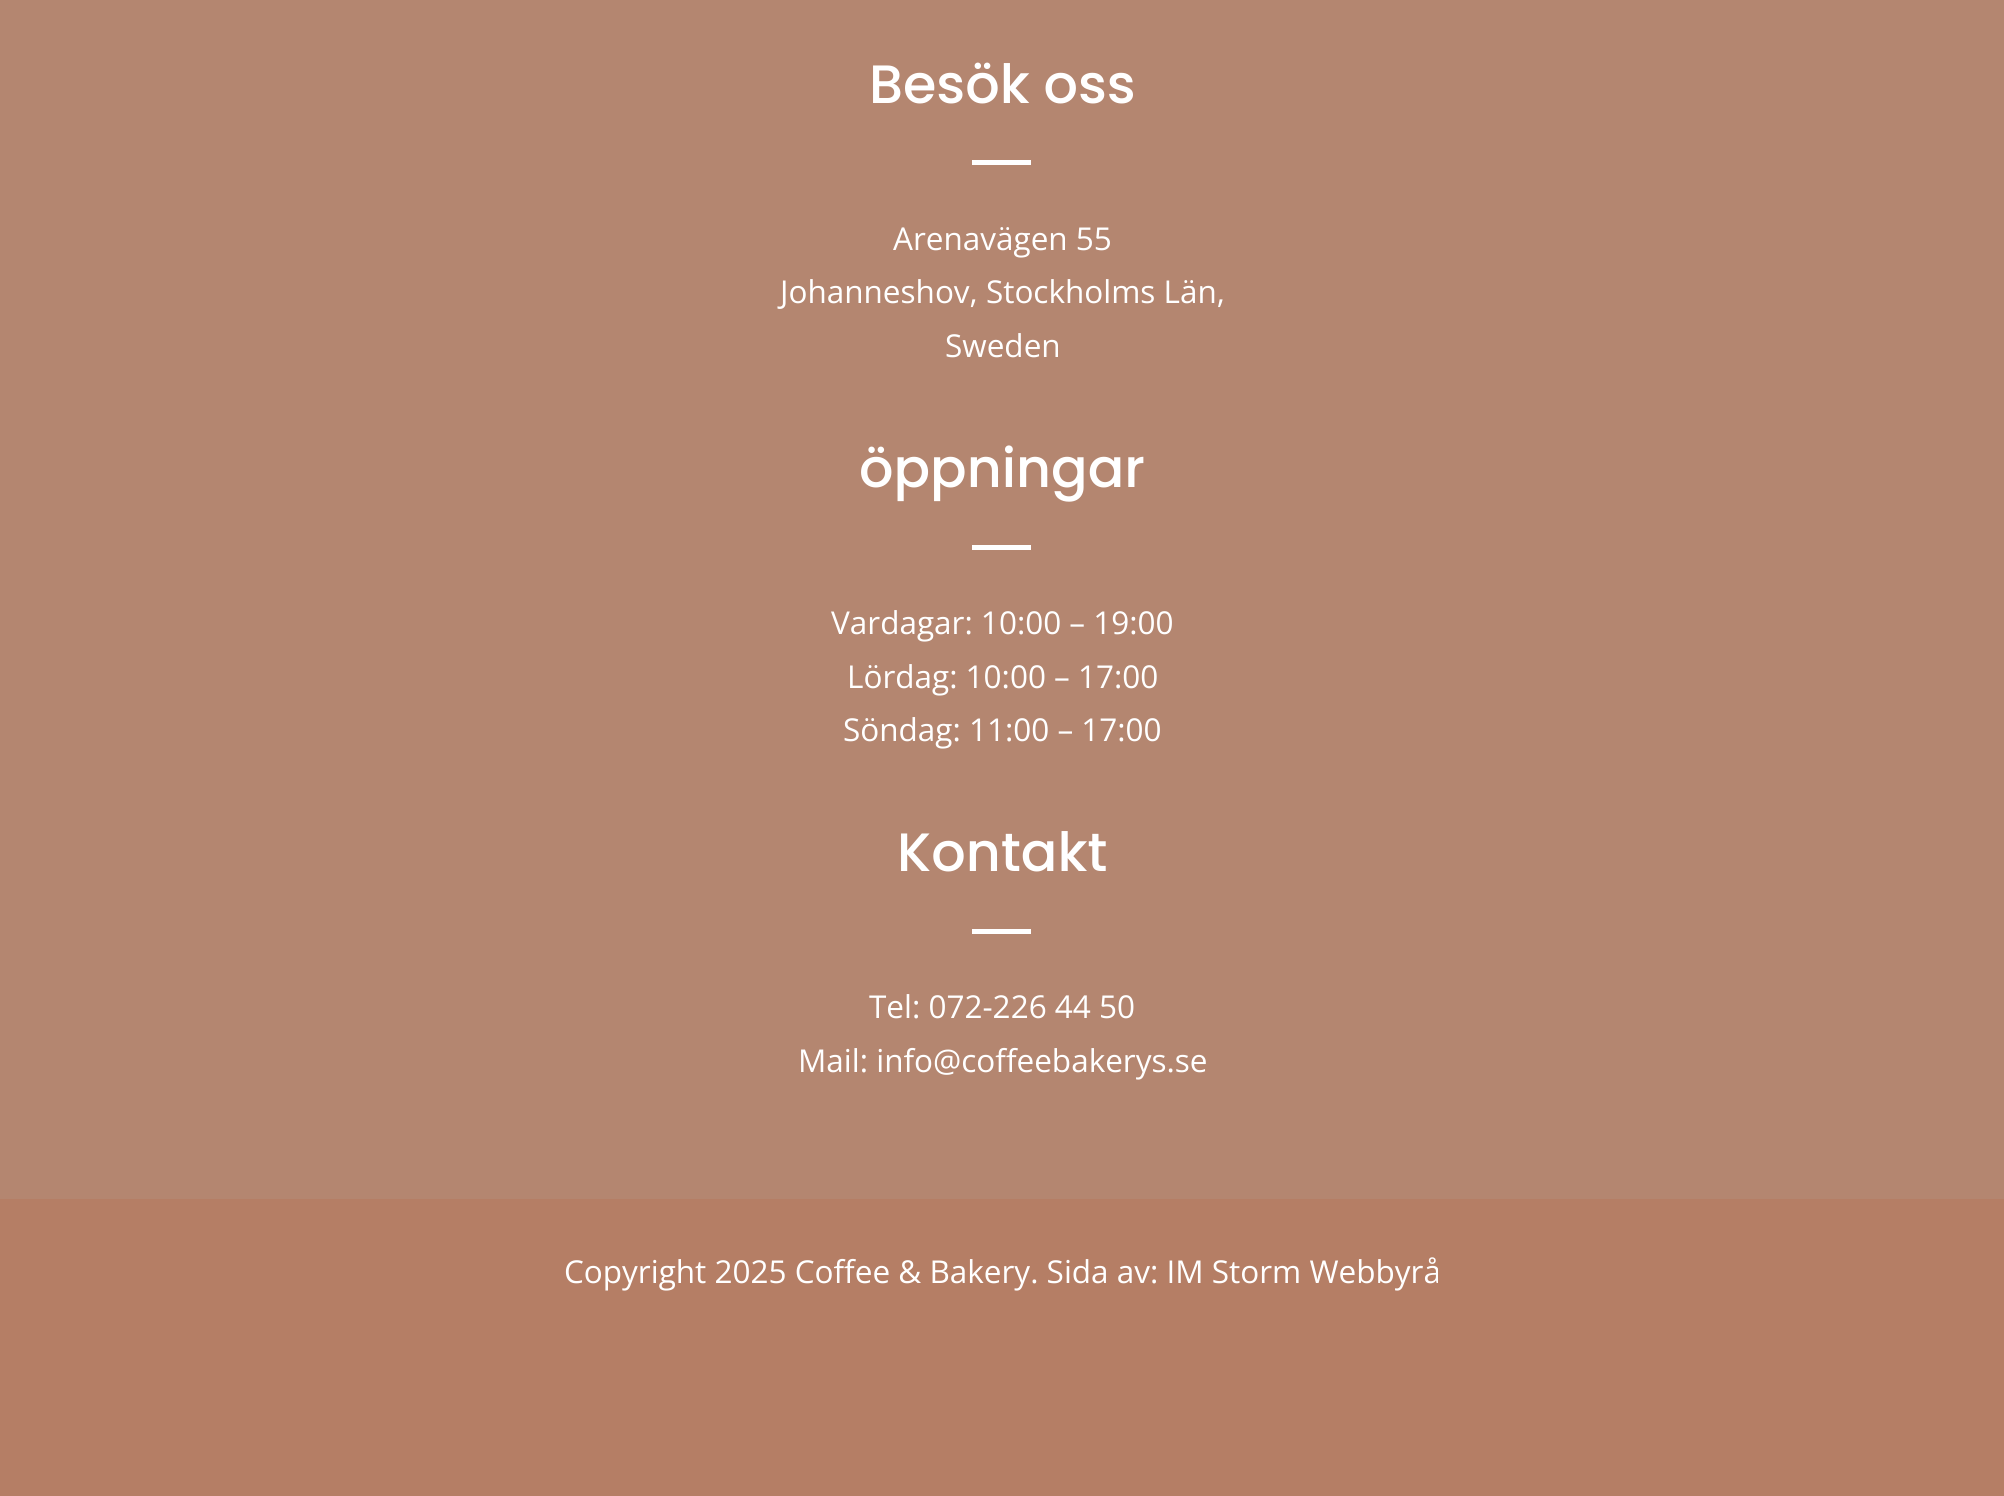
#include <cairo/cairo.h>
#include <math.h>
#include <stddef.h>

static cairo_t *cr;

static void use_color(int r, int g, int b) {
  cairo_set_source_rgb(cr, r / 255.0, g / 255.0, b / 255.0);
}

static void text(double x, double y, const char *s, const char *family, double size, int italic, int bold, int r, int g, int b) {
  cairo_select_font_face(cr, family, italic ? CAIRO_FONT_SLANT_ITALIC : CAIRO_FONT_SLANT_NORMAL,
    bold ? CAIRO_FONT_WEIGHT_BOLD : CAIRO_FONT_WEIGHT_NORMAL);
  cairo_set_font_size(cr, size);
  use_color(r, g, b);
  cairo_move_to(cr, x, y);
  cairo_show_text(cr, s);
}

static void box(double x, double y, double w, double h, int r, int g, int b) {
  use_color(r, g, b);
  cairo_rectangle(cr, x, y, w, h);
  cairo_fill(cr);
}

static void draw(void) {
  use_color(180, 134, 112);
  cairo_paint(cr);
  box(972, 160, 59, 5, 255, 255, 255);
  box(972, 545, 59, 5, 255, 255, 255);
  box(972, 929, 59, 5, 255, 255, 255);
  box(0, 1199, 2004, 297, 181, 126, 101);
  text(869, 103, "Besök oss", "Poppins Medium", 54, 0, 0, 255, 255, 255);
  text(893, 250, "Arenavägen 55", "Open Sans", 31.5, 0, 0, 255, 255, 255);
  text(780, 303, "Johanneshov, Stockholms Län,", "Open Sans", 31.5, 0, 0, 255, 255, 255);
  text(945, 357, "Sweden", "Open Sans", 31.5, 0, 0, 255, 255, 255);
  text(859, 487, "öppningar", "Poppins Medium", 54, 0, 0, 255, 255, 255);
  text(831, 634, "Vardagar: 10:00 – 19:00", "Open Sans", 31.5, 0, 0, 255, 255, 255);
  text(847, 688, "Lördag: 10:00 – 17:00", "Open Sans", 31.5, 0, 0, 255, 255, 255);
  text(843, 741, "Söndag: 11:00 – 17:00", "Open Sans", 31.5, 0, 0, 255, 255, 255);
  text(897, 871, "Kontakt", "Poppins Medium", 54, 0, 0, 255, 255, 255);
  text(869, 1018, "Tel: 072-226 44 50", "Open Sans", 31.5, 0, 0, 255, 255, 255);
  text(798, 1072, "Mail: info@coffeebakerys.se", "Open Sans", 31.5, 0, 0, 255, 255, 255);
  text(564, 1283, "Copyright 2025 Coffee & Bakery. Sida av: IM Storm Webbyrå", "Open Sans", 31.5, 0, 0, 255, 255, 255);
}

int main(void) {
  cairo_surface_t *surface = cairo_image_surface_create(CAIRO_FORMAT_RGB24, 2004, 1496);
  cr = cairo_create(surface);
  cairo_font_options_t *options = cairo_font_options_create();
  cairo_font_options_set_hint_metrics(options, CAIRO_HINT_METRICS_OFF);
  cairo_font_options_set_hint_style(options, CAIRO_HINT_STYLE_NONE);
  cairo_set_font_options(cr, options);
  cairo_set_miter_limit(cr, 4);
  draw();
  cairo_surface_write_to_png(surface, "out.png");
  cairo_font_options_destroy(options);
  cairo_destroy(cr);
  cairo_surface_destroy(surface);
  return 0;
}
